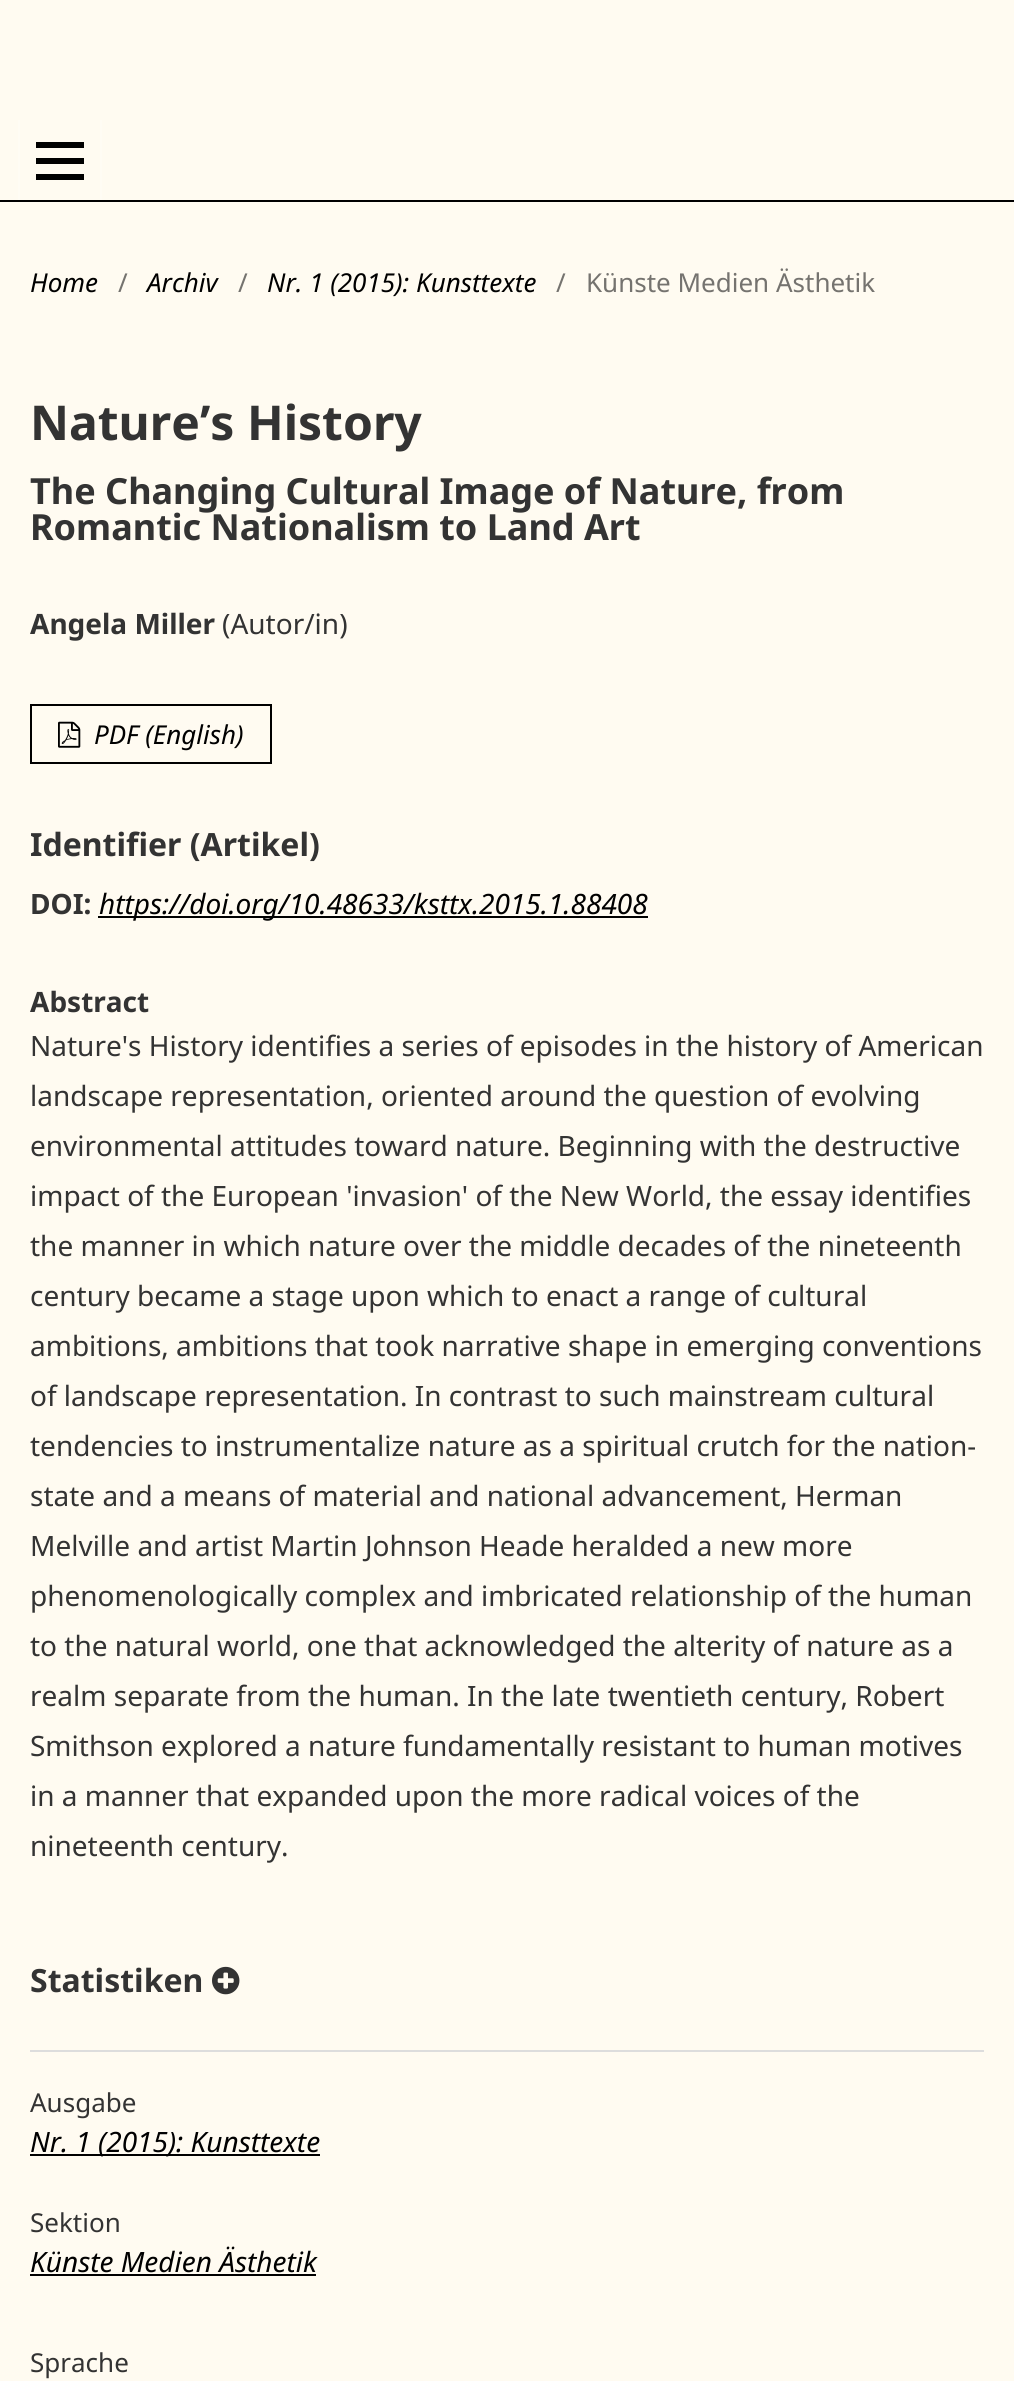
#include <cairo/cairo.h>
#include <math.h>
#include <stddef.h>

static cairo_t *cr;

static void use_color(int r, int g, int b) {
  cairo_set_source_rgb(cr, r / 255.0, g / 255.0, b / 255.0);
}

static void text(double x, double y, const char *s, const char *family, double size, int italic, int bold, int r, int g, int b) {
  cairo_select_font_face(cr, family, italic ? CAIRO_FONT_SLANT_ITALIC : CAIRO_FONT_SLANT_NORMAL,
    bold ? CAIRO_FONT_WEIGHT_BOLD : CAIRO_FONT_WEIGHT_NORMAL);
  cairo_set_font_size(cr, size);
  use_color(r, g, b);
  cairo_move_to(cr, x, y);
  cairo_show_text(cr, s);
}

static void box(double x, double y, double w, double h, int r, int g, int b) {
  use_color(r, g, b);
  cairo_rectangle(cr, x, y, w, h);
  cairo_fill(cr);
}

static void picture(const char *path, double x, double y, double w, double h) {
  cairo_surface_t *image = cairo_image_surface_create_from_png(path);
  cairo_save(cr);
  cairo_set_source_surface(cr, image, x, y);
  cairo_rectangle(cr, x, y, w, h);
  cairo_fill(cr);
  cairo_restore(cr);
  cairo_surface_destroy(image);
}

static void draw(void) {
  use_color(255, 251, 241);
  cairo_paint(cr);
  box(0, 200, 1014, 2, 0, 0, 0);
  box(18, 120, 2, 80, 255, 252, 244);
  box(100, 120, 2, 80, 255, 252, 244);
  box(36, 174, 48, 6, 0, 0, 0);
  box(36, 142, 48, 6, 0, 0, 0);
  box(36, 158, 48, 6, 0, 0, 0);
  cairo_rectangle(cr, 31, 705, 240, 58);
  cairo_stroke(cr);
  picture("img_01.png", 58, 721, 23, 27);
  box(98, 916, 550, 2, 0, 0, 0);
  picture("img_02.png", 212, 1966, 28, 29);
  box(30, 2050, 954, 2, 221, 221, 221);
  box(30, 2154, 290, 2, 0, 0, 0);
  box(30, 2274, 286, 2, 0, 0, 0);
  text(30, 292, "Home", "Noto Sans", 26, 1, 0, 0, 0, 0);
  text(118, 292, "/", "Noto Sans", 26, 0, 0, 117, 115, 111);
  text(147, 292, "Archiv", "Noto Sans", 26, 1, 0, 0, 0, 0);
  text(238, 292, "/", "Noto Sans", 26, 0, 0, 117, 115, 111);
  text(267, 292, "Nr. 1 (2015): Kunsttexte", "Noto Sans", 26, 1, 0, 0, 0, 0);
  text(556, 292, "/", "Noto Sans", 26, 0, 0, 117, 115, 111);
  text(586, 292, "Künste Medien Ästhetik", "Noto Sans", 26, 0, 0, 117, 115, 111);
  text(30, 440, "Nature’s History", "Noto Sans", 48, 0, 1, 51, 51, 51);
  text(30, 504, "The Changing Cultural Image of Nature, from", "Noto Sans", 36, 0, 1, 51, 51, 51);
  text(30, 540, "Romantic Nationalism to Land Art", "Noto Sans", 36, 0, 1, 51, 51, 51);
  text(30, 634, "Angela Miller", "Noto Sans", 28, 0, 1, 51, 51, 51);
  text(222, 634, "(Autor/in)", "Noto Sans", 28, 0, 0, 51, 51, 51);
  text(94, 744, "PDF (English)", "Noto Sans", 26, 1, 0, 0, 0, 0);
  text(30, 856, "Identifier (Artikel)", "Noto Sans", 32, 0, 1, 51, 51, 51);
  text(30, 914, "DOI:", "Noto Sans", 28, 0, 1, 51, 51, 51);
  text(99, 914, "https://doi.org/10.48633/ksttx.2015.1.88408", "Noto Sans", 28, 1, 0, 0, 0, 0);
  text(30, 1012, "Abstract", "Noto Sans", 28, 0, 1, 51, 51, 51);
  text(30, 1056, "Nature's History identifies a series of episodes in the history of American", "Noto Sans", 28, 0, 0, 51, 51, 51);
  text(30, 1106, "landscape representation, oriented around the question of evolving", "Noto Sans", 28, 0, 0, 51, 51, 51);
  text(30, 1156, "environmental attitudes toward nature. Beginning with the destructive", "Noto Sans", 28, 0, 0, 51, 51, 51);
  text(30, 1206, "impact of the European 'invasion' of the New World, the essay identifies", "Noto Sans", 28, 0, 0, 51, 51, 51);
  text(30, 1256, "the manner in which nature over the middle decades of the nineteenth", "Noto Sans", 28, 0, 0, 51, 51, 51);
  text(30, 1306, "century became a stage upon which to enact a range of cultural", "Noto Sans", 28, 0, 0, 51, 51, 51);
  text(30, 1356, "ambitions, ambitions that took narrative shape in emerging conventions", "Noto Sans", 28, 0, 0, 51, 51, 51);
  text(30, 1406, "of landscape representation. In contrast to such mainstream cultural", "Noto Sans", 28, 0, 0, 51, 51, 51);
  text(30, 1456, "tendencies to instrumentalize nature as a spiritual crutch for the nation-", "Noto Sans", 28, 0, 0, 51, 51, 51);
  text(30, 1506, "state and a means of material and national advancement, Herman", "Noto Sans", 28, 0, 0, 51, 51, 51);
  text(30, 1556, "Melville and artist Martin Johnson Heade heralded a new more", "Noto Sans", 28, 0, 0, 51, 51, 51);
  text(30, 1606, "phenomenologically complex and imbricated relationship of the human", "Noto Sans", 28, 0, 0, 51, 51, 51);
  text(30, 1656, "to the natural world, one that acknowledged the alterity of nature as a", "Noto Sans", 28, 0, 0, 51, 51, 51);
  text(30, 1706, "realm separate from the human. In the late twentieth century, Robert", "Noto Sans", 28, 0, 0, 51, 51, 51);
  text(30, 1756, "Smithson explored a nature fundamentally resistant to human motives", "Noto Sans", 28, 0, 0, 51, 51, 51);
  text(30, 1806, "in a manner that expanded upon the more radical voices of the", "Noto Sans", 28, 0, 0, 51, 51, 51);
  text(30, 1856, "nineteenth century.", "Noto Sans", 28, 0, 0, 51, 51, 51);
  text(30, 1992, "Statistiken", "Noto Sans", 32, 0, 1, 51, 51, 51);
  text(30, 2112, "Ausgabe", "Noto Sans", 26, 0, 0, 51, 51, 51);
  text(30, 2152, "Nr. 1 (2015): Kunsttexte", "Noto Sans", 28, 1, 0, 0, 0, 0);
  text(30, 2232, "Sektion", "Noto Sans", 26, 0, 0, 51, 51, 51);
  text(30, 2272, "Künste Medien Ästhetik", "Noto Sans", 28, 1, 0, 0, 0, 0);
  text(30, 2372, "Sprache", "Noto Sans", 26, 0, 0, 51, 51, 51);
}

int main(void) {
  cairo_surface_t *surface = cairo_image_surface_create(CAIRO_FORMAT_RGB24, 1014, 2381);
  cr = cairo_create(surface);
  cairo_font_options_t *options = cairo_font_options_create();
  cairo_font_options_set_hint_metrics(options, CAIRO_HINT_METRICS_OFF);
  cairo_font_options_set_hint_style(options, CAIRO_HINT_STYLE_NONE);
  cairo_set_font_options(cr, options);
  cairo_set_miter_limit(cr, 4);
  draw();
  cairo_surface_write_to_png(surface, "out.png");
  cairo_font_options_destroy(options);
  cairo_destroy(cr);
  cairo_surface_destroy(surface);
  return 0;
}
